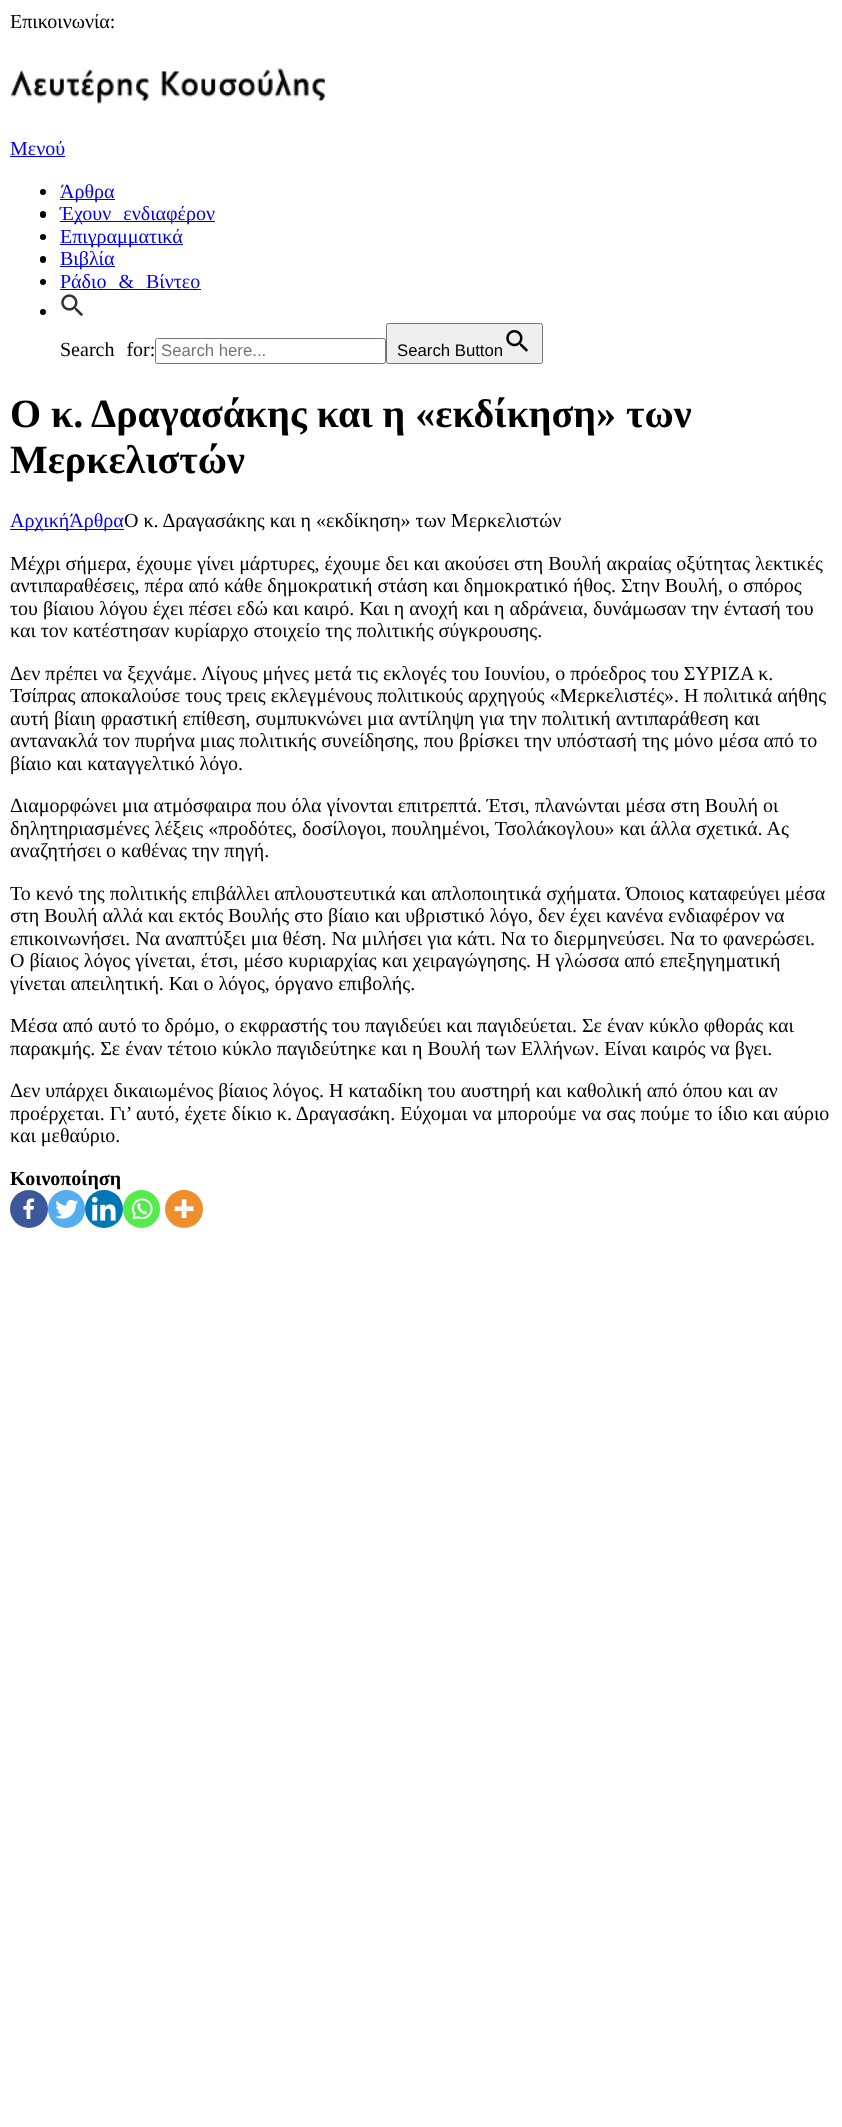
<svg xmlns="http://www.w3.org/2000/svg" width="842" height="2127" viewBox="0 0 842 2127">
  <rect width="100%" height="100%" fill="#fff"/>
  <image x="11" y="68" width="314" height="36" href="img/1.png"/>
  <path d="M10 156h55v1H10z" fill="#00e"/>
  <circle cx="43" cy="192" r="3" fill="#000"/>
  <path d="M60 199h55v1H60z" fill="#00e"/>
  <rect x="40" y="211" width="6" height="7" rx="3" fill="#000"/>
  <path d="M60 221h155v1H60z" fill="#00e"/>
  <circle cx="43" cy="237" r="3" fill="#000"/>
  <path d="M60 244h123v1H60z" fill="#00e"/>
  <rect x="40" y="256" width="6" height="7" rx="3" fill="#000"/>
  <path d="M60 266h55v1H60z" fill="#00e"/>
  <circle cx="43" cy="282" r="3" fill="#000"/>
  <path d="M60 289h141v1H60z" fill="#00e"/>
  <circle cx="43" cy="312" r="3" fill="#000"/>
  <image x="61" y="294" width="22" height="23" href="img/2.png"/>
  <rect x="155.5" y="338.5" width="230" height="25" rx="2" fill="none" stroke="#767676"/>
  <rect x="386.5" y="323.5" width="156" height="40" rx="2" fill="#efefef" stroke="#767676"/>
  <image x="506" y="330" width="22" height="22" href="img/3.png"/>
  <path d="M10 529h114v1H10z" fill="#00e"/>
  <circle cx="29" cy="1209" r="19" fill="#3c589a"/>
  <image x="23" y="1198" width="12" height="21" href="img/4.png"/>
  <rect x="48" y="1190" width="37" height="38" rx="18.5" fill="#55acee"/>
  <image x="55" y="1199" width="24" height="20" href="img/5.png"/>
  <circle cx="104" cy="1209" r="19" fill="#0077b5"/>
  <image x="91" y="1196" width="25" height="25" href="img/6.png"/>
  <rect x="123" y="1190" width="37" height="38" rx="18.5" fill="#55eb4c"/>
  <image x="131" y="1198" width="22" height="22" href="img/7.png"/>
  <circle cx="184" cy="1209" r="19" fill="#ee8e2d"/>
  <image x="174" y="1199" width="20" height="20" href="img/8.png"/>
  <text x="10" y="28" font-family="Liberation Serif" font-size="20" fill="#000">Επικοινωνία:</text>
  <g font-family="Liberation Serif" font-size="20" fill="#00e">
    <text x="10" y="155">Μενού</text>
    <text x="60" y="198">Άρθρα</text>
    <text x="60" y="220" word-spacing="7">Έχουν ενδιαφέρον</text>
    <text x="60" y="243">Επιγραμματικά</text>
    <text x="60" y="265">Βιβλία</text>
    <text x="60" y="288" word-spacing="7">Ράδιο &amp; Βίντεο</text>
  </g>
  <text x="60" y="356" word-spacing="7" font-family="Liberation Serif" font-size="20" fill="#000">Search for:</text>
  <text x="161" y="356" font-family="Liberation Sans" font-size="16.75" fill="#757575">Search here...</text>
  <text x="397" y="356" font-family="Liberation Sans" font-size="16.75" fill="#000">Search Button</text>
  <g font-family="Liberation Serif" font-size="40" font-weight="bold" fill="#000">
    <text x="10" y="427">Ο κ. Δραγασάκης και η «εκδίκηση» των</text>
    <text x="10" y="473">Μερκελιστών</text>
  </g>
  <text x="10" y="527" font-family="Liberation Serif" font-size="20" fill="#00e">ΑρχικήΆρθρα</text>
  <g font-family="Liberation Serif" font-size="20" fill="#000">
    <text x="124" y="527">Ο κ. Δραγασάκης και η «εκδίκηση» των Μερκελιστών</text>
    <text x="10" y="570">Μέχρι σήμερα, έχουμε γίνει μάρτυρες, έχουμε δει και ακούσει στη Βουλή ακραίας οξύτητας λεκτικές</text>
    <text x="10" y="592">αντιπαραθέσεις, πέρα από κάθε δημοκρατική στάση και δημοκρατικό ήθος. Στην Βουλή, ο σπόρος</text>
    <text x="10" y="615">του βίαιου λόγου έχει πέσει εδώ και καιρό. Και η ανοχή και η αδράνεια, δυνάμωσαν την έντασή του</text>
    <text x="10" y="637">και τον κατέστησαν κυρίαρχο στοιχείο της πολιτικής σύγκρουσης.</text>
    <text x="10" y="680">Δεν πρέπει να ξεχνάμε. Λίγους μήνες μετά τις εκλογές του Ιουνίου, ο πρόεδρος του ΣΥΡΙΖΑ κ.</text>
    <text x="10" y="702">Τσίπρας αποκαλούσε τους τρεις εκλεγμένους πολιτικούς αρχηγούς «Μερκελιστές». Η πολιτικά αήθης</text>
    <text x="10" y="725">αυτή βίαιη φραστική επίθεση, συμπυκνώνει μια αντίληψη για την πολιτική αντιπαράθεση και</text>
    <text x="10" y="747">αντανακλά τον πυρήνα μιας πολιτικής συνείδησης, που βρίσκει την υπόστασή της μόνο μέσα από το</text>
    <text x="10" y="770">βίαιο και καταγγελτικό λόγο.</text>
    <text x="10" y="812">Διαμορφώνει μια ατμόσφαιρα που όλα γίνονται επιτρεπτά. Έτσι, πλανώνται μέσα στη Βουλή οι</text>
    <text x="10" y="835">δηλητηριασμένες λέξεις «προδότες, δοσίλογοι, πουλημένοι, Τσολάκογλου» και άλλα σχετικά. Ας</text>
    <text x="10" y="857">αναζητήσει ο καθένας την πηγή.</text>
    <text x="10" y="900">Το κενό της πολιτικής επιβάλλει απλουστευτικά και απλοποιητικά σχήματα. Όποιος καταφεύγει μέσα</text>
    <text x="10" y="922">στη Βουλή αλλά και εκτός Βουλής στο βίαιο και υβριστικό λόγο, δεν έχει κανένα ενδιαφέρον να</text>
    <text x="10" y="945">επικοινωνήσει. Να αναπτύξει μια θέση. Να μιλήσει για κάτι. Να το διερμηνεύσει. Να το φανερώσει.</text>
    <text x="10" y="967">Ο βίαιος λόγος γίνεται, έτσι, μέσο κυριαρχίας και χειραγώγησης. Η γλώσσα από επεξηγηματική</text>
    <text x="10" y="990">γίνεται απειλητική. Και ο λόγος, όργανο επιβολής.</text>
    <text x="10" y="1032">Μέσα από αυτό το δρόμο, ο εκφραστής του παγιδεύει και παγιδεύεται. Σε έναν κύκλο φθοράς και</text>
    <text x="10" y="1055">παρακμής. Σε έναν τέτοιο κύκλο παγιδεύτηκε και η Βουλή των Ελλήνων. Είναι καιρός να βγει.</text>
    <text x="10" y="1097">Δεν υπάρχει δικαιωμένος βίαιος λόγος. Η καταδίκη του αυστηρή και καθολική από όπου και αν</text>
    <text x="10" y="1120">προέρχεται. Γι’ αυτό, έχετε δίκιο κ. Δραγασάκη. Εύχομαι να μπορούμε να σας πούμε το ίδιο και αύριο</text>
    <text x="10" y="1142">και μεθαύριο.</text>
  </g>
  <text x="10" y="1185" font-family="Liberation Serif" font-size="20" font-weight="bold" fill="#000">Κοινοποίηση</text>
</svg>
